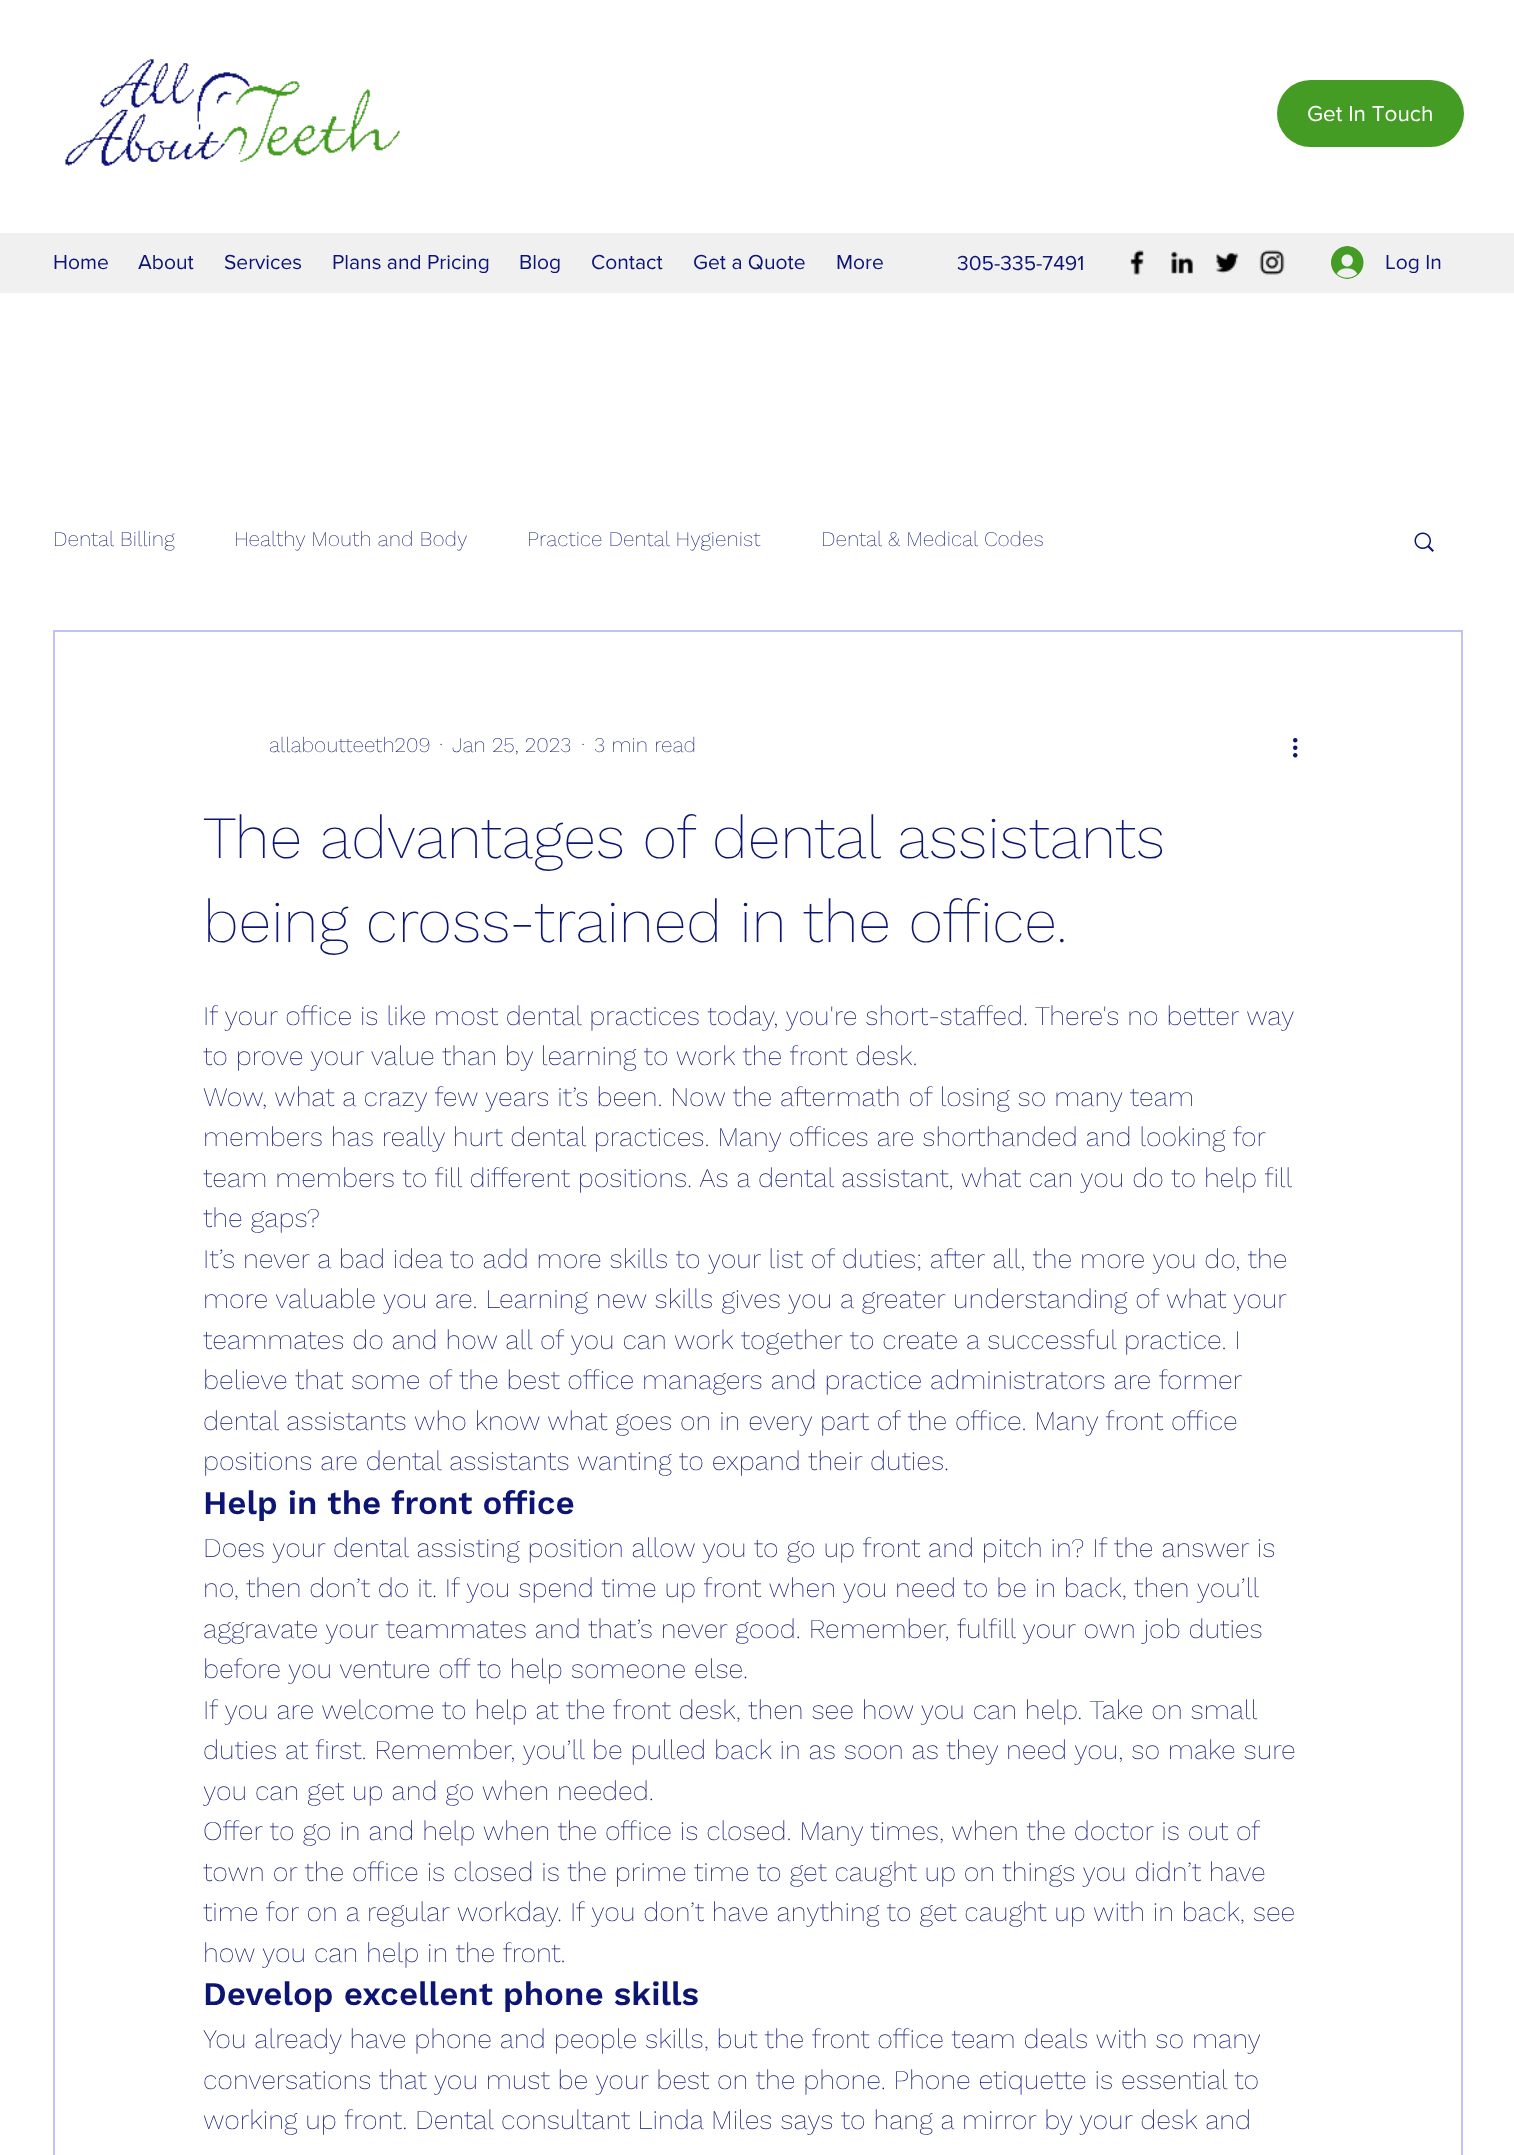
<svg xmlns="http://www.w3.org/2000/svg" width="1514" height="2155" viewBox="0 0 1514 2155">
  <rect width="100%" height="100%" fill="#fff"/>
  <image x="65" y="59" width="335" height="107" href="img/1.png"/>
  <rect x="1277" y="80" width="187" height="67" rx="33.5" fill="#449c24"/>
  <path d="M0 233h1514v60H0z" fill="#f0f0f0"/>
  <image x="1130" y="250" width="14" height="25" href="img/2.png"/>
  <image x="1171" y="251" width="23" height="23" href="img/3.png"/>
  <image x="1215" y="252" width="24" height="22" href="img/4.png"/>
  <image x="1259" y="250" width="26" height="25" href="img/5.png"/>
  <image x="1331" y="246" width="33" height="33" href="img/6.png"/>
  <image x="1414" y="532" width="20" height="20" href="img/7.png"/>
  <path d="M54 631h1408v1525H54z" fill="none" stroke="#bec2f8" stroke-width="2"/>
  <image x="1293" y="738" width="5" height="20" href="img/8.png"/>
  <text x="1307" y="121" font-family="'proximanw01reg'" font-size="22.5" fill="#fff">Get In Touch</text>
  <g font-family="'proximanw01reg'" font-size="21" fill="#0c1474">
    <text x="53" y="269">Home</text>
    <text x="138" y="269">About</text>
    <text x="224" y="269">Services</text>
    <text x="332" y="269">Plans and Pricing</text>
    <text x="519" y="269">Blog</text>
    <text x="591" y="269">Contact</text>
    <text x="693" y="269">Get a Quote</text>
    <text x="836" y="269">More</text>
    <text x="957" y="270">305-335-7491</text>
    <text x="1385" y="269">Log In</text>
  </g>
  <g font-family="Work Sans" font-size="21" font-weight="200" fill="#0c1474">
    <text x="53" y="546">Dental Billing</text>
    <text x="234" y="546">Healthy Mouth and Body</text>
    <text x="527" y="546">Practice Dental Hygienist</text>
    <text x="821" y="546">Dental &amp; Medical Codes</text>
    <text x="269" y="752">allaboutteeth209</text>
    <text x="439" y="752">·</text>
    <text x="452" y="752">Jan 25, 2023</text>
    <text x="581" y="752">·</text>
    <text x="594" y="752">3 min read</text>
  </g>
  <g font-family="Work Sans" font-size="60" font-weight="200" fill="#0c1474">
    <text x="203" y="858">The advantages of dental assistants</text>
    <text x="203" y="942">being cross-trained in the office.</text>
  </g>
  <g font-family="Work Sans" font-size="27" font-weight="200" fill="#0c1474">
    <text x="203" y="1025">If your office is like most dental practices today, you're short-staffed. There's no better way</text>
    <text x="203" y="1065">to prove your value than by learning to work the front desk.</text>
    <text x="203" y="1106">Wow, what a crazy few years it’s been. Now the aftermath of losing so many team</text>
    <text x="203" y="1146">members has really hurt dental practices. Many offices are shorthanded and looking for</text>
    <text x="203" y="1187">team members to fill different positions. As a dental assistant, what can you do to help fill</text>
    <text x="203" y="1227">the gaps?</text>
    <text x="203" y="1268">It’s never a bad idea to add more skills to your list of duties; after all, the more you do, the</text>
    <text x="203" y="1308">more valuable you are. Learning new skills gives you a greater understanding of what your</text>
    <text x="203" y="1349">teammates do and how all of you can work together to create a successful practice. I</text>
    <text x="203" y="1389">believe that some of the best office managers and practice administrators are former</text>
    <text x="203" y="1430">dental assistants who know what goes on in every part of the office. Many front office</text>
    <text x="203" y="1470">positions are dental assistants wanting to expand their duties.</text>
  </g>
  <text x="203" y="1514" font-family="Work Sans" font-size="33" font-weight="600" fill="#0c1474">Help in the front office</text>
  <g font-family="Work Sans" font-size="27" font-weight="200" fill="#0c1474">
    <text x="203" y="1557">Does your dental assisting position allow you to go up front and pitch in? If the answer is</text>
    <text x="203" y="1597">no, then don’t do it. If you spend time up front when you need to be in back, then you’ll</text>
    <text x="203" y="1638">aggravate your teammates and that’s never good. Remember, fulfill your own job duties</text>
    <text x="203" y="1678">before you venture off to help someone else.</text>
    <text x="203" y="1719">If you are welcome to help at the front desk, then see how you can help. Take on small</text>
    <text x="203" y="1759">duties at first. Remember, you’ll be pulled back in as soon as they need you, so make sure</text>
    <text x="203" y="1800">you can get up and go when needed.</text>
    <text x="203" y="1840">Offer to go in and help when the office is closed. Many times, when the doctor is out of</text>
    <text x="203" y="1881">town or the office is closed is the prime time to get caught up on things you didn’t have</text>
    <text x="203" y="1921">time for on a regular workday. If you don’t have anything to get caught up with in back, see</text>
    <text x="203" y="1962">how you can help in the front.</text>
  </g>
  <text x="203" y="2005" font-family="Work Sans" font-size="33" font-weight="600" fill="#0c1474">Develop excellent phone skills</text>
  <g font-family="Work Sans" font-size="27" font-weight="200" fill="#0c1474">
    <text x="203" y="2048">You already have phone and people skills, but the front office team deals with so many</text>
    <text x="203" y="2089">conversations that you must be your best on the phone. Phone etiquette is essential to</text>
    <text x="203" y="2129">working up front. Dental consultant Linda Miles says to hang a mirror by your desk and</text>
  </g>
</svg>
